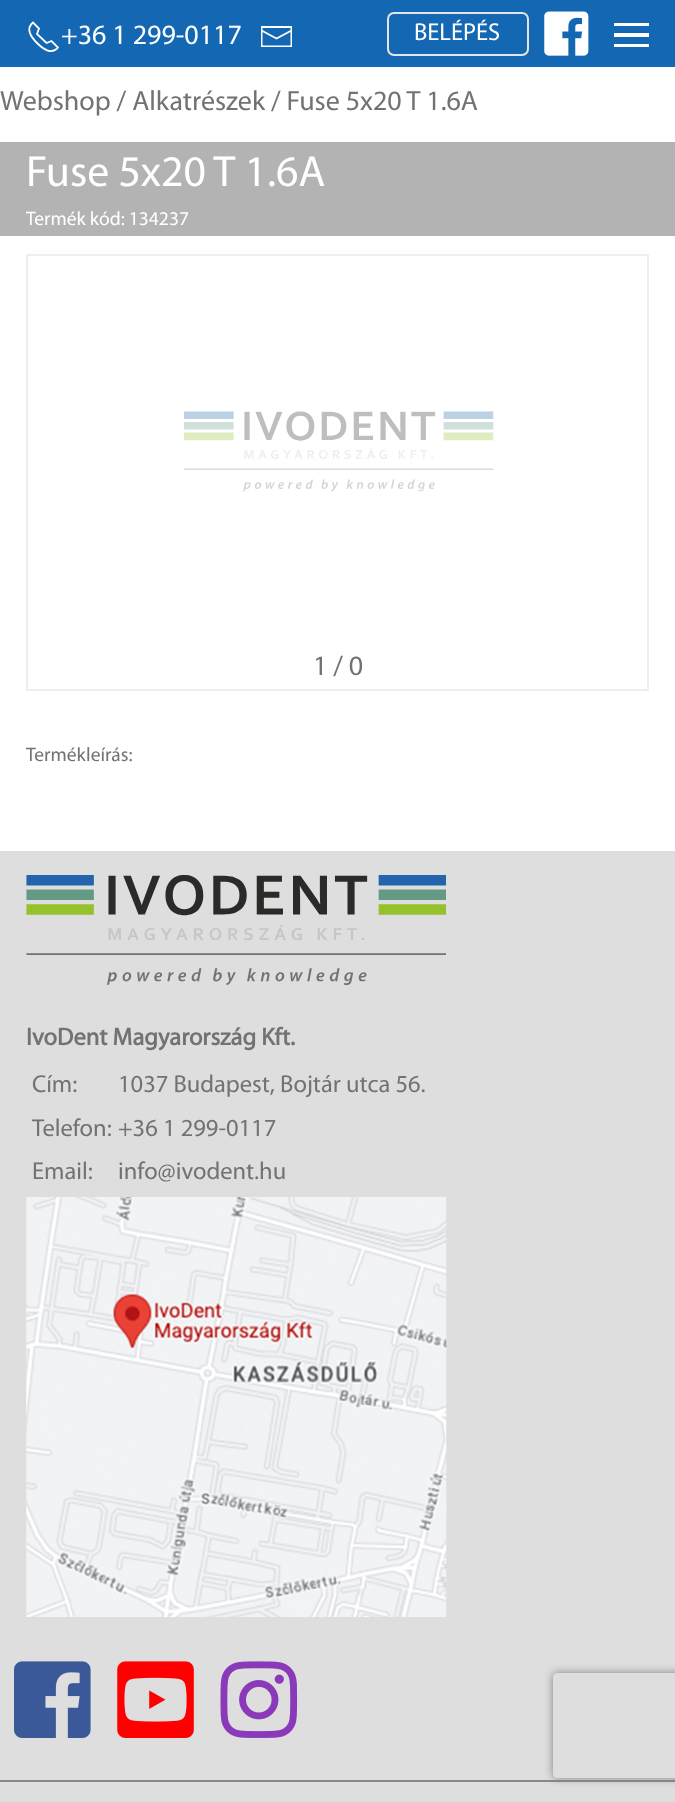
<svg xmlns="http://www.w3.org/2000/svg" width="675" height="1802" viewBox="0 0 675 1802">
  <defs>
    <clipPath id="clip1"><path d="M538 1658H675V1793H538ZM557 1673H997C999 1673 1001 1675 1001 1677V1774C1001 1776 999 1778 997 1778H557C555 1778 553 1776 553 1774V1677C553 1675 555 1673 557 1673Z" clip-rule="evenodd"/></clipPath>
  </defs>
  <rect width="100%" height="100%" fill="#fff"/>
  <path d="M0 0h675v67H0z" fill="#1468b3"/>
  <path d="M37 43C42.5 48.5 51.5 55.5 58 47.5L51.5 41L46.5 43L37 34L39 28.5L33 22.5C25 29 31.5 37.5 37 43" fill="none" stroke="#fff" stroke-width="1.8"/>
  <path d="M261.5 30.5L276.5 38.5L291.5 30.5" fill="none" stroke="#fff" stroke-width="1.8"/>
  <path d="M261 26V47H292V26ZM290.5 45.5H262.5V28H290.5Z" fill="#fff"/>
  <rect x="388" y="13" width="140" height="42" rx="6" fill="none" stroke="#e5e5e5" stroke-width="2"/>
  <image x="544" y="11" width="45" height="45" href="img/1.png"/>
  <path d="M614 23h35v3H614z" fill="#fff"/>
  <path d="M614 33h35v4H614z" fill="#fff"/>
  <path d="M614 44h35v3H614z" fill="#fff"/>
  <path d="M0 142h675v94H0z" fill="#b3b3b3"/>
  <path d="M27 255h621v435H27z" fill="none" stroke="#eee" stroke-width="2"/>
  <image x="184" y="411" width="310" height="81" href="img/2.png"/>
  <path d="M0 851h675v951H0z" fill="#dfdede"/>
  <image x="26" y="875" width="420" height="110" href="img/3.png"/>
  <image x="26" y="1197" width="421" height="420" href="img/4.png"/>
  <image x="14" y="1661" width="77" height="77" href="img/5.png"/>
  <image x="117" y="1661" width="77" height="77" href="img/6.png"/>
  <image x="220" y="1661" width="78" height="77" href="img/7.png"/>
  <path d="M0 1780h675v2H0z" fill="#888"/>
  <g clip-path="url(#clip1)">
    <rect x="553" y="1673" width="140" height="105" rx="4" fill="#808080" filter="blur(4.5px)"/>
  </g>
  <text x="61" y="44" font-family="Myriad" font-size="28" fill="#fff">+36 1 299-0117</text>
  <text x="414" y="40" font-family="Myriad" font-size="24.5" fill="#fff">BELÉPÉS</text>
  <text x="0" y="110" font-family="Myriad" font-size="28" fill="#727271">Webshop / Alkatrészek / Fuse 5x20 T 1.6A</text>
  <text x="26" y="186" font-family="Myriad" font-size="43.75" fill="#fff">Fuse 5x20 T 1.6A</text>
  <text x="26" y="225" font-family="Myriad" font-size="19.5" fill="#fff">Termék kód: 134237</text>
  <text x="313" y="675" font-family="Myriad" font-size="28" fill="#727271">1 / 0</text>
  <text x="26" y="761" font-family="Myriad" font-size="19.5" fill="#727271">Termékleírás:</text>
  <text x="26" y="1045" font-family="Myriad" font-size="24.5" font-weight="bold" fill="#727271">IvoDent Magyarország Kft.</text>
  <g font-family="Myriad" font-size="24.5" fill="#727271">
    <text x="32" y="1092">Cím:</text>
    <text x="118" y="1092">1037 Budapest, Bojtár utca 56.</text>
    <text x="32" y="1136">Telefon:</text>
    <text x="118" y="1136">+36 1 299-0117</text>
    <text x="32" y="1179">Email:</text>
    <text x="118" y="1179">info@ivodent.hu</text>
  </g>
</svg>
